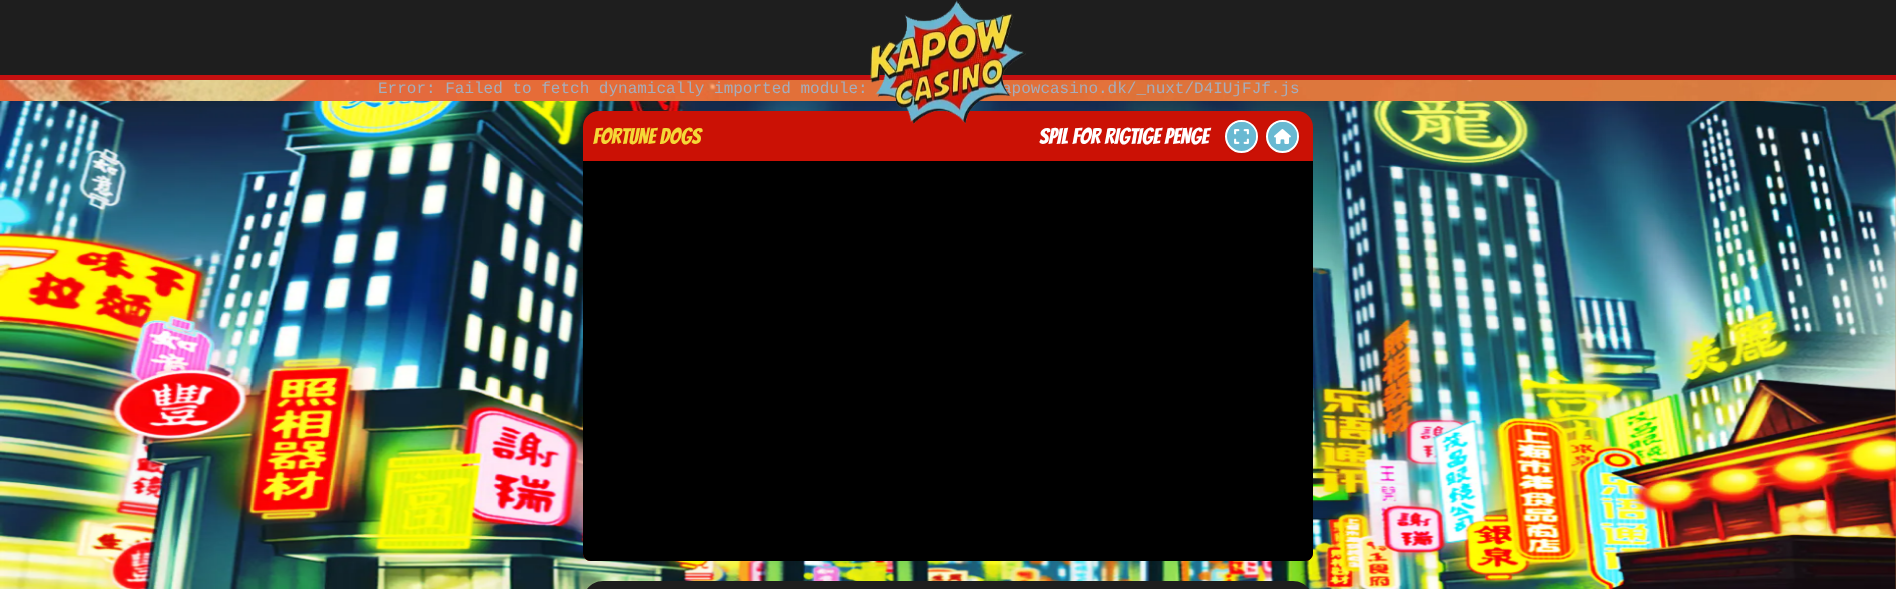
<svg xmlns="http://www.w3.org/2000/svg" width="1896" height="589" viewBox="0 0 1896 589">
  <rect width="100%" height="100%" fill="#fff"/>
  <image x="1895" y="588" width="1" height="1" href="img/6.png"/>
  <image x="0" y="80" width="1896" height="509" href="img/1.png"/>
  <path d="M0 0h1896v75H0z" fill="#1e1e1e"/>
  <path d="M0 75h1896v5H0z" fill="#c51010"/>
  <image x="0" y="101" width="1896" height="488" href="img/3.png"/>
  <path d="M599 111H1297C1306 111 1313 118 1313 127V553C1313 557.5 1309.5 561 1305 561H591C586.5 561 583 557.5 583 553V127C583 118 590 111 599 111Z" fill="#cb1105"/>
  <rect x="1225" y="121" width="33" height="33" rx="16.5" fill="#0000000d" filter="blur(1px)"/>
  <circle cx="1241.5" cy="136.5" r="15.5" fill="#69b9d2" stroke="#fff" stroke-width="2"/>
  <circle cx="1242" cy="136" r="14" fill="#69b9d2"/>
  <image x="1234" y="129" width="15" height="15" href="img/4.png"/>
  <rect x="1266" y="121" width="33" height="33" rx="16.5" fill="#0000000d" filter="blur(1px)"/>
  <circle cx="1282.5" cy="136.5" r="15.5" fill="#69b9d2" stroke="#fff" stroke-width="2"/>
  <circle cx="1283" cy="136" r="14" fill="#69b9d2"/>
  <image x="1274" y="129" width="17" height="15" href="img/5.png"/>
  <path d="M583 161H1313V553C1313 557.5 1309.5 561 1305 561H591C586.5 561 583 557.5 583 553Z" fill="#000"/>
  <path d="M603 581H1293C1304 581 1313 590 1313 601V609H583V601C583 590 592 581 603 581Z" fill="#1e1e1e"/>
  <g font-family="Liberation Mono" font-size="16" fill="#a6adbb">
    <text x="378" y="93">Error: Failed to fetch dynamically imported module:</text>
    <text x="1002" y="93">apowcasino.dk/_nuxt/D4IUjFJf.js</text>
  </g>
  <image x="870" y="0" width="156" height="124" href="img/2.png"/>
  <text x="593" y="144" font-family="Bangers" font-size="22" fill="#f5d737">FORTUNE DOGS</text>
  <text x="1039" y="144" font-family="Bangers" font-size="22" fill="#fff">SPIL FOR RIGTIGE PENGE</text>
</svg>
